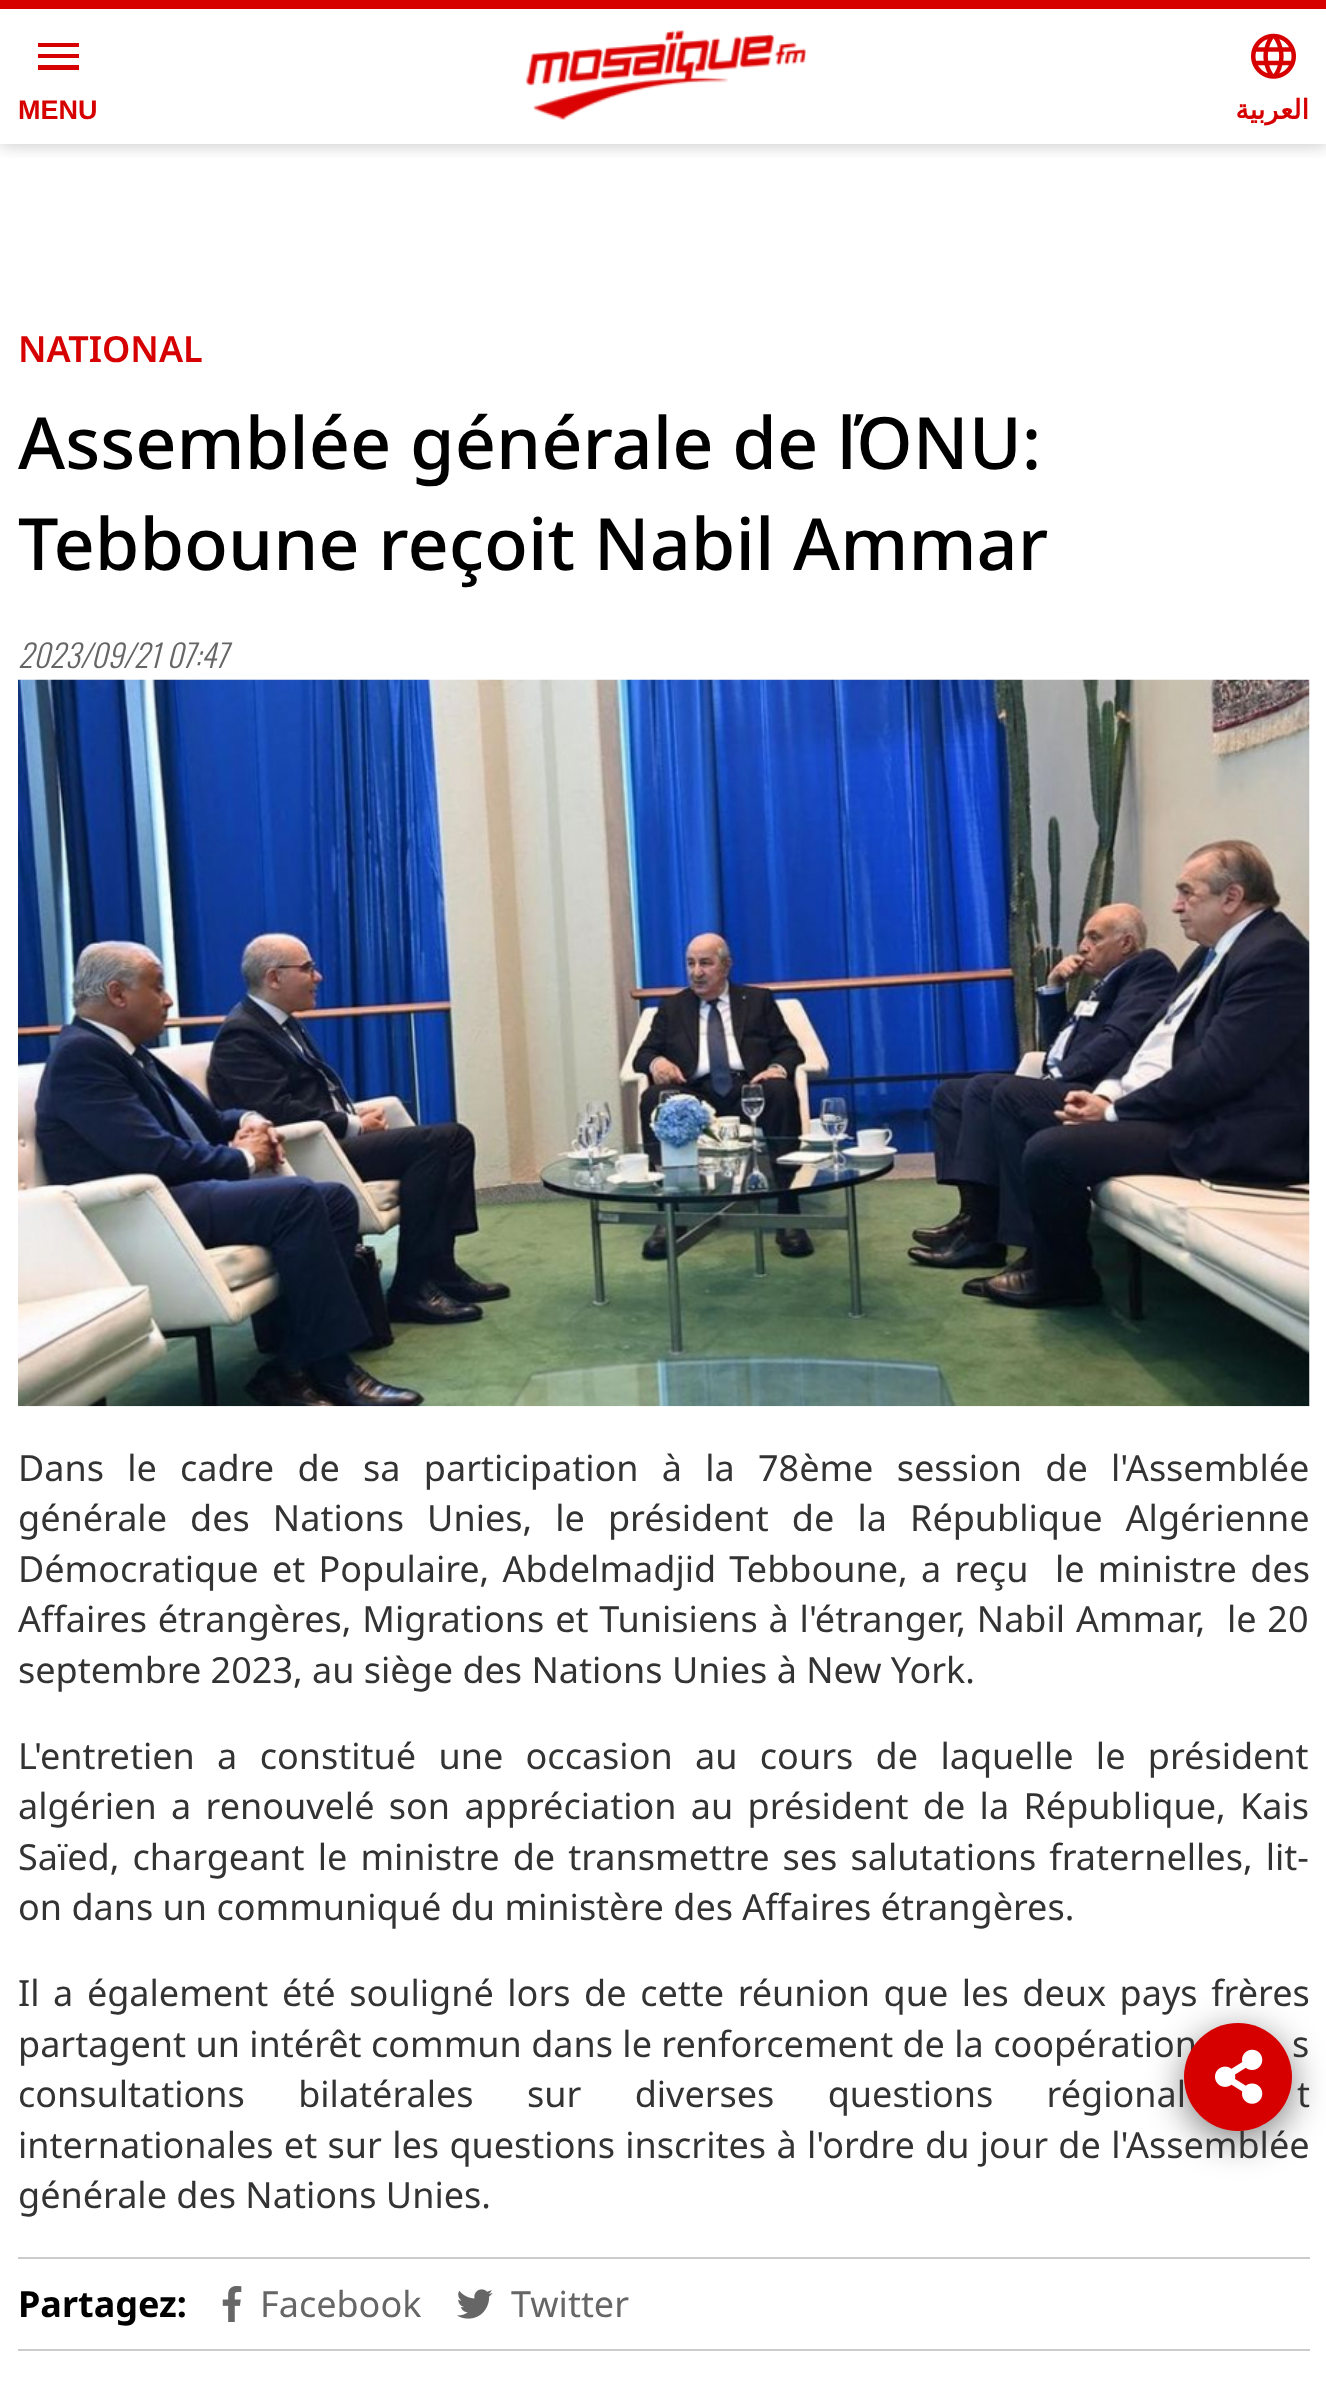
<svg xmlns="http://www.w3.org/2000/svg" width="1326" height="2399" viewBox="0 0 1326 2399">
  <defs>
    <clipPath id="clip1"><path d="M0 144h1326v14H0z"/></clipPath>
  </defs>
  <rect width="100%" height="100%" fill="#fff"/>
  <g clip-path="url(#clip1)">
    <path d="M0 0h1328v144H0z" fill="#3333334d" filter="blur(9px)"/>
  </g>
  <path d="M0 0h1326v9H0z" fill="#d60000"/>
  <path d="M38 70V65H79V70ZM38 58V54H79V58ZM38 47V43H79V47Z" fill="#d60000"/>
  <image x="526" y="30" width="280" height="90" href="img/1.png"/>
  <image x="1251" y="33" width="45" height="46" href="img/2.png"/>
  <image x="18" y="679" width="1292" height="728" href="img/3.png"/>
  <path d="M18 2257h1292v2H18z" fill="#ccc"/>
  <path d="M18 2349h1292v2H18z" fill="#ccc"/>
  <image x="222" y="2286" width="20" height="36" href="img/4.png"/>
  <image x="457" y="2289" width="36" height="30" href="img/5.png"/>
  <rect x="1184" y="2032" width="108" height="108" rx="54" fill="#00000080" filter="blur(18px)"/>
  <text x="18" y="119" font-family="Liberation Sans" font-size="27" font-weight="bold" fill="#d60000">MENU</text>
  <text x="1309" y="119" font-family="DejaVu Sans" font-size="27" font-weight="bold" direction="rtl" fill="#d60000">العربية</text>
  <text x="18" y="362" font-family="Noto Sans" font-size="36" font-weight="600" fill="#d60000">NATIONAL</text>
  <g font-family="Noto Sans" font-size="72" font-weight="500" fill="#000">
    <text x="18" y="469">Assemblée générale de ľONU:</text>
    <text x="18" y="570">Tebboune reçoit Nabil Ammar</text>
  </g>
  <text x="18" y="668" font-family="Oswald" font-size="31.5" font-weight="300" font-style="italic" fill="#666">2023/09/21 07:47</text>
  <g font-family="Noto Sans" font-size="36" fill="#333">
    <text x="18" y="1481" word-spacing="13.9">Dans le cadre de sa participation à la 78ème session de l'Assemblée</text>
    <text x="18" y="1531" word-spacing="13.75">générale des Nations Unies, le président de la République Algérienne</text>
    <text x="18" y="1582" word-spacing="3.9" xml:space="preserve">Démocratique et Populaire, Abdelmadjid Tebboune, a reçu  le ministre des</text>
    <text x="18" y="1632" word-spacing="1.5" xml:space="preserve">Affaires étrangères, Migrations et Tunisiens à l'étranger, Nabil Ammar,  le 20</text>
    <text x="18" y="1683">septembre 2023, au siège des Nations Unies à New York.</text>
    <text x="18" y="1769" word-spacing="13">L'entretien a constitué une occasion au cours de laquelle le président</text>
    <text x="18" y="1819" word-spacing="5">algérien a renouvelé son appréciation au président de la République, Kais</text>
    <text x="18" y="1870" word-spacing="3.75">Saïed, chargeant le ministre de transmettre ses salutations fraternelles, lit-</text>
    <text x="18" y="1920">on dans un communiqué du ministère des Affaires étrangères.</text>
    <text x="18" y="2006" word-spacing="4.25">Il a également été souligné lors de cette réunion que les deux pays frères</text>
    <text x="18" y="2057">partagent un intérêt commun dans le renforcement de la coopération</text>
    <text x="1292" y="2057">s</text>
    <text x="18" y="2107" word-spacing="44">consultations bilatérales sur diverses questions régional</text>
    <text x="1297" y="2107" word-spacing="44">t</text>
    <text x="18" y="2158" word-spacing="1">internationales et sur les questions inscrites à l'ordre du jour de l'Assemblée</text>
    <text x="18" y="2208">générale des Nations Unies.</text>
  </g>
  <text x="18" y="2317" font-family="Noto Sans" font-size="36" font-weight="bold" fill="#000">Partagez:</text>
  <g font-family="Noto Sans" font-size="36" fill="#666">
    <text x="260" y="2317">Facebook</text>
    <text x="511" y="2317">Twitter</text>
  </g>
  <circle cx="1238" cy="2077" r="54" fill="#d60000"/>
  <image x="1215" y="2049" width="48" height="55" href="img/6.png"/>
</svg>
